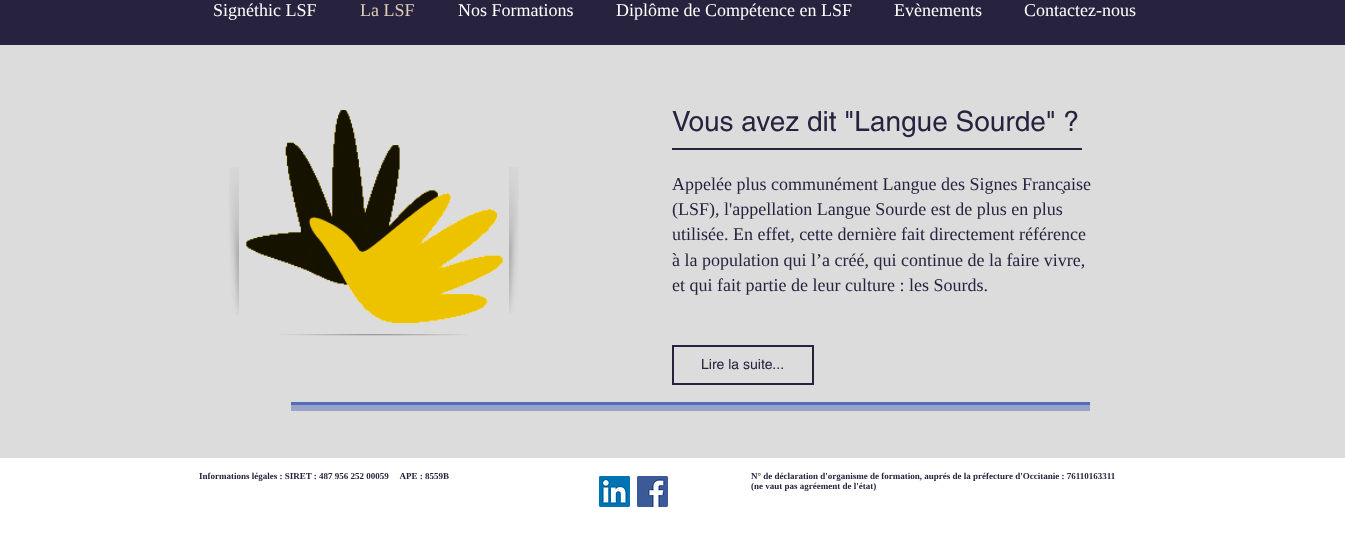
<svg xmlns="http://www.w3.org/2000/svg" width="1345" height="536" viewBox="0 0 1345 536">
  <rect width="100%" height="100%" fill="#dcdcdc"/>
  <path d="M0 0h1345v45H0z" fill="#27223e"/>
  <image x="229" y="167" width="10" height="148" href="img/1.png"/>
  <image x="246" y="110" width="257" height="214" href="img/2.png"/>
  <image x="280" y="334" width="188" height="2" href="img/3.png"/>
  <image x="509" y="167" width="10" height="148" href="img/4.png"/>
  <path d="M672 148h410v2H672z" fill="#27223e"/>
  <path d="M673 346h140v38H673z" fill="none" stroke="#27223e" stroke-width="2"/>
  <path d="M291 402h799v3H291z" fill="#536eb7"/>
  <path d="M291 405h799v6H291z" fill="#98a5c9"/>
  <path d="M0 458h1345v78H0z" fill="#fff"/>
  <image x="599" y="476" width="31" height="31" href="img/5.png"/>
  <image x="637" y="476" width="31" height="31" href="img/6.png"/>
  <text x="213" y="16" font-family="Liberation Serif" font-size="18" fill="#fff">Signéthic LSF</text>
  <text x="360" y="16" font-family="Liberation Serif" font-size="18" fill="#dfcfba">La LSF</text>
  <g font-family="Liberation Serif" font-size="18" fill="#fff">
    <text x="458" y="16">Nos Formations</text>
    <text x="616" y="16">Diplôme de Compétence en LSF</text>
    <text x="894" y="16">Evènements</text>
    <text x="1024" y="16">Contactez-nous</text>
  </g>
  <text x="672" y="131" font-family="helvetica" font-size="28" fill="#27223e">Vous avez dit "Langue Sourde" ?</text>
  <g font-family="Liberation Serif" font-size="18" fill="#27223e">
    <text x="672" y="190">Appelée plus communément Langue des Signes Française</text>
    <text x="672" y="215">(LSF), l'appellation Langue Sourde est de plus en plus</text>
    <text x="672" y="240">utilisée. En effet, cette dernière fait directement référence</text>
    <text x="672" y="266">à la population qui l’a créé, qui continue de la faire vivre,</text>
    <text x="672" y="291">et qui fait partie de leur culture : les Sourds.</text>
  </g>
  <text x="701" y="369" font-family="helvetica" font-size="14" fill="#27223e">Lire la suite...</text>
  <g font-family="Liberation Serif" font-size="9" font-weight="bold" fill="#27223e">
    <text x="199" y="479" xml:space="preserve">Informations légales : SIRET : 487 956 252 00059     APE : 8559B</text>
    <text x="751" y="479">N° de déclaration d'organisme de formation, auprés de la préfecture d'Occitanie : 76110163311</text>
    <text x="751" y="489">(ne vaut pas agréement de l'état)</text>
  </g>
</svg>
